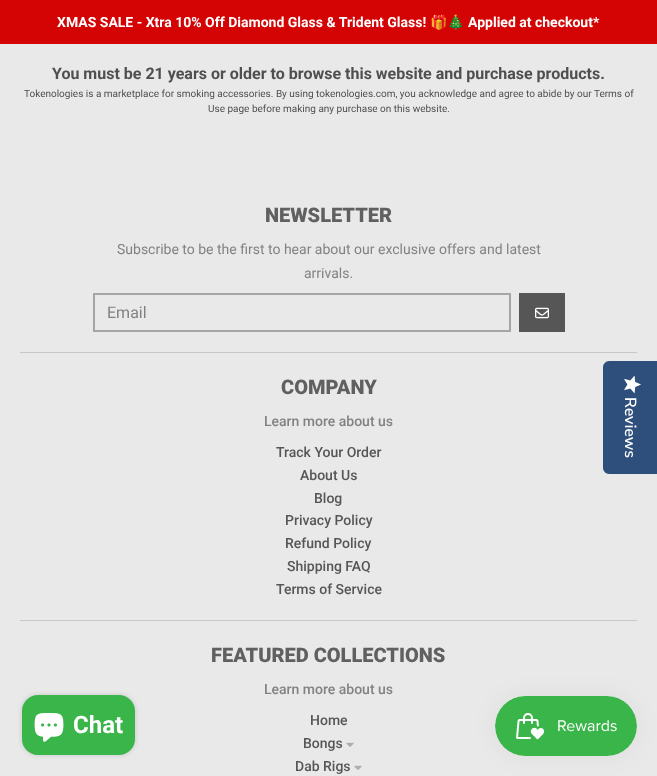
<svg xmlns="http://www.w3.org/2000/svg" width="657" height="776" viewBox="0 0 657 776">
  <rect width="100%" height="100%" fill="#e9e9e9"/>
  <path d="M0 0h657v44H0z" fill="#d40404"/>
  <path d="M94 294h416v37H94z" fill="none" stroke="#a5a5a5" stroke-width="2"/>
  <path d="M519 293h46v39H519z" fill="#565656"/>
  <image x="535" y="307" width="14" height="12" href="img/1.png"/>
  <path d="M20 352h617v1H20z" fill="#c7c7c7"/>
  <path d="M20 620h617v1H20z" fill="#c7c7c7"/>
  <image x="346" y="742" width="8" height="5" href="img/2.png"/>
  <image x="354" y="765" width="8" height="5" href="img/2.png"/>
  <path d="M657 361V474H609C606 474 603 471 603 468V367C603 364 606 361 609 361Z" fill="#2e4f7c"/>
  <image x="624" y="375" width="17" height="19" href="img/3.png"/>
  <rect x="22" y="695" width="113" height="60" rx="16" fill="#00000026" filter="blur(2.5px)"/>
  <rect x="22" y="695" width="113" height="60" rx="16" fill="#3ab549"/>
  <image x="34" y="713" width="30" height="29" href="img/4.png"/>
  <rect x="495" y="696" width="142" height="60" rx="30" fill="#0000000d" filter="blur(12.5px)"/>
  <image x="495" y="696" width="142" height="60" href="img/5.png"/>
  <text x="57" y="27" font-family="Roboto" font-size="14" font-weight="bold" fill="#fff">XMAS SALE - Xtra 10% Off Diamond Glass &amp; Trident Glass!</text>
  <text x="430" y="27" font-family="Noto Color Emoji" font-size="14" font-weight="bold" fill="#fff">🎁🎄</text>
  <text x="468" y="27" font-family="Roboto" font-size="14" font-weight="bold" fill="#fff">Applied at checkout*</text>
  <text x="52" y="79" font-family="Roboto" font-size="16" font-weight="bold" fill="#4f4f4f">You must be 21 years or older to browse this website and purchase products.</text>
  <g font-family="Roboto" font-size="10" fill="#4f4f4f">
    <text x="24" y="97">Tokenologies is a marketplace for smoking accessories. By using tokenologies.com, you acknowledge and agree to abide by our Terms of</text>
    <text x="208" y="112">Use page before making any purchase on this website.</text>
  </g>
  <text x="265" y="222" font-family="Roboto" font-size="20" font-weight="900" fill="#606060">NEWSLETTER</text>
  <g font-family="Roboto" font-size="14" fill="#828282">
    <text x="117" y="254">Subscribe to be the first to hear about our exclusive offers and latest</text>
    <text x="304" y="278">arrivals.</text>
  </g>
  <text x="107" y="318" font-family="Roboto" font-size="16" fill="#828282">Email</text>
  <text x="281" y="394" font-family="Roboto" font-size="20" font-weight="900" fill="#606060">COMPANY</text>
  <text x="264" y="426" font-family="Roboto" font-size="14" font-weight="500" fill="#828282">Learn more about us</text>
  <g font-family="Roboto" font-size="14" font-weight="500" fill="#565656">
    <text x="276" y="457">Track Your Order</text>
    <text x="300" y="480">About Us</text>
    <text x="314" y="503">Blog</text>
    <text x="285" y="525">Privacy Policy</text>
    <text x="285" y="548">Refund Policy</text>
    <text x="287" y="571">Shipping FAQ</text>
    <text x="276" y="594">Terms of Service</text>
  </g>
  <text x="211" y="662" font-family="Roboto" font-size="20" font-weight="900" fill="#606060">FEATURED COLLECTIONS</text>
  <text x="264" y="694" font-family="Roboto" font-size="14" font-weight="500" fill="#828282">Learn more about us</text>
  <g font-family="Roboto" font-size="14" font-weight="500" fill="#565656">
    <text x="310" y="725">Home</text>
    <text x="303" y="748">Bongs</text>
    <text x="295" y="771">Dab Rigs</text>
  </g>
  <text x="625" y="397" transform="rotate(90 625 397)" font-family="Nunito Sans" font-size="16" font-weight="200" fill="#fff">Reviews</text>
  <text x="73" y="733" font-family="Roboto" font-size="24" font-weight="bold" fill="#fff">Chat</text>
</svg>
